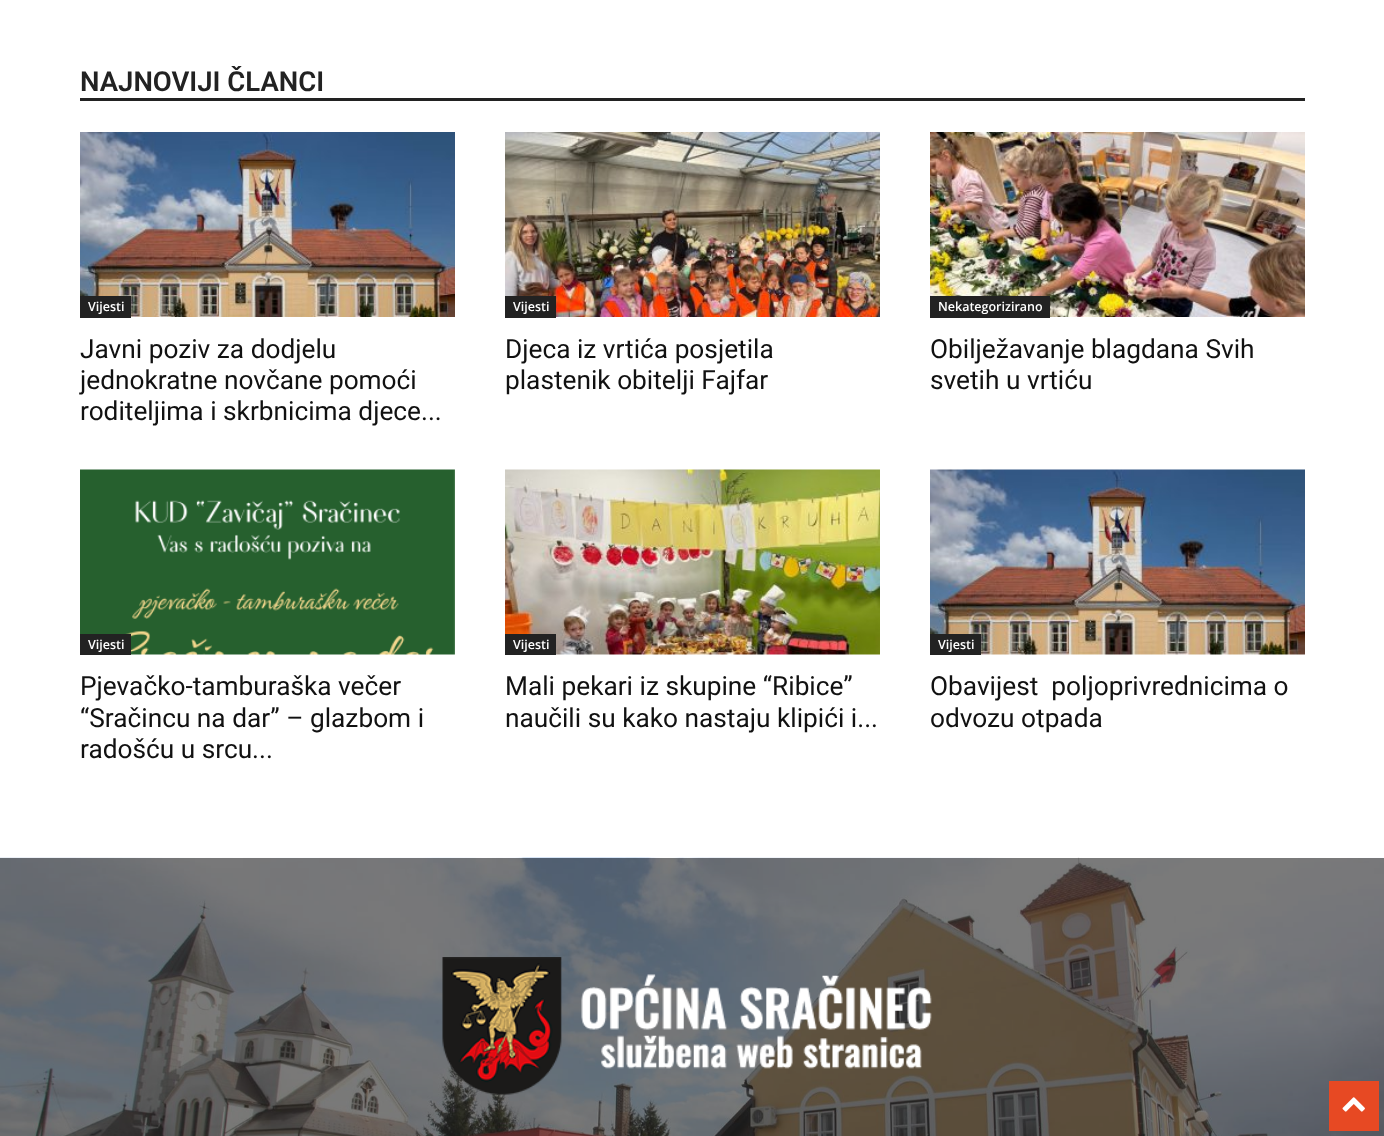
<svg xmlns="http://www.w3.org/2000/svg" width="1384" height="1136" viewBox="0 0 1384 1136">
  <rect width="100%" height="100%" fill="#fff"/>
  <path d="M80 98h1225v3H80z" fill="#222"/>
  <image x="80" y="132" width="375" height="185" href="img/1.png"/>
  <path d="M80 296h51v22H80z" fill="#222"/>
  <image x="505" y="132" width="375" height="185" href="img/2.png"/>
  <path d="M505 296h51v22H505z" fill="#222"/>
  <image x="930" y="132" width="375" height="185" href="img/3.png"/>
  <path d="M930 296h120v22H930z" fill="#222"/>
  <image x="80" y="469" width="375" height="186" href="img/4.png"/>
  <path d="M80 634h51v21H80z" fill="#222"/>
  <image x="505" y="469" width="375" height="186" href="img/5.png"/>
  <path d="M505 634h51v21H505z" fill="#222"/>
  <image x="930" y="469" width="375" height="186" href="img/6.png"/>
  <path d="M930 634h51v21H930z" fill="#222"/>
  <path d="M0 858h1384v278H0z" fill="#222"/>
  <image x="0" y="857" width="1384" height="279" href="img/7.png"/>
  <image x="442" y="957" width="490" height="138" href="img/8.png"/>
  <path d="M1329 1081h50v50H1329z" fill="#e74923"/>
  <image x="1342" y="1097" width="23" height="15" href="img/9.png"/>
  <text x="80" y="91" font-family="Roboto" font-size="27.5" font-weight="600" fill="#222">NAJNOVIJI ČLANCI</text>
  <text x="88" y="311" font-family="Open Sans" font-size="12.5" font-weight="600" fill="#fff">Vijesti</text>
  <g font-family="Roboto" font-size="26.25" fill="#111">
    <text x="80" y="358">Javni poziv za dodjelu</text>
    <text x="80" y="389">jednokratne novčane pomoći</text>
    <text x="80" y="420">roditeljima i skrbnicima djece...</text>
  </g>
  <text x="513" y="311" font-family="Open Sans" font-size="12.5" font-weight="600" fill="#fff">Vijesti</text>
  <g font-family="Roboto" font-size="26.25" fill="#111">
    <text x="505" y="358">Djeca iz vrtića posjetila</text>
    <text x="505" y="389">plastenik obitelji Fajfar</text>
  </g>
  <text x="938" y="311" font-family="Open Sans" font-size="12.5" font-weight="600" fill="#fff">Nekategorizirano</text>
  <g font-family="Roboto" font-size="26.25" fill="#111">
    <text x="930" y="358">Obilježavanje blagdana Svih</text>
    <text x="930" y="389">svetih u vrtiću</text>
  </g>
  <text x="88" y="649" font-family="Open Sans" font-size="12.5" font-weight="600" fill="#fff">Vijesti</text>
  <g font-family="Roboto" font-size="26.25" fill="#111">
    <text x="80" y="695">Pjevačko-tamburaška večer</text>
    <text x="80" y="727">“Sračincu na dar” – glazbom i</text>
    <text x="80" y="758">radošću u srcu...</text>
  </g>
  <text x="513" y="649" font-family="Open Sans" font-size="12.5" font-weight="600" fill="#fff">Vijesti</text>
  <g font-family="Roboto" font-size="26.25" fill="#111">
    <text x="505" y="695">Mali pekari iz skupine “Ribice”</text>
    <text x="505" y="727">naučili su kako nastaju klipići i...</text>
  </g>
  <text x="938" y="649" font-family="Open Sans" font-size="12.5" font-weight="600" fill="#fff">Vijesti</text>
  <g font-family="Roboto" font-size="26.25" fill="#111">
    <text x="930" y="695" xml:space="preserve">Obavijest  poljoprivrednicima o</text>
    <text x="930" y="727">odvozu otpada</text>
  </g>
</svg>
